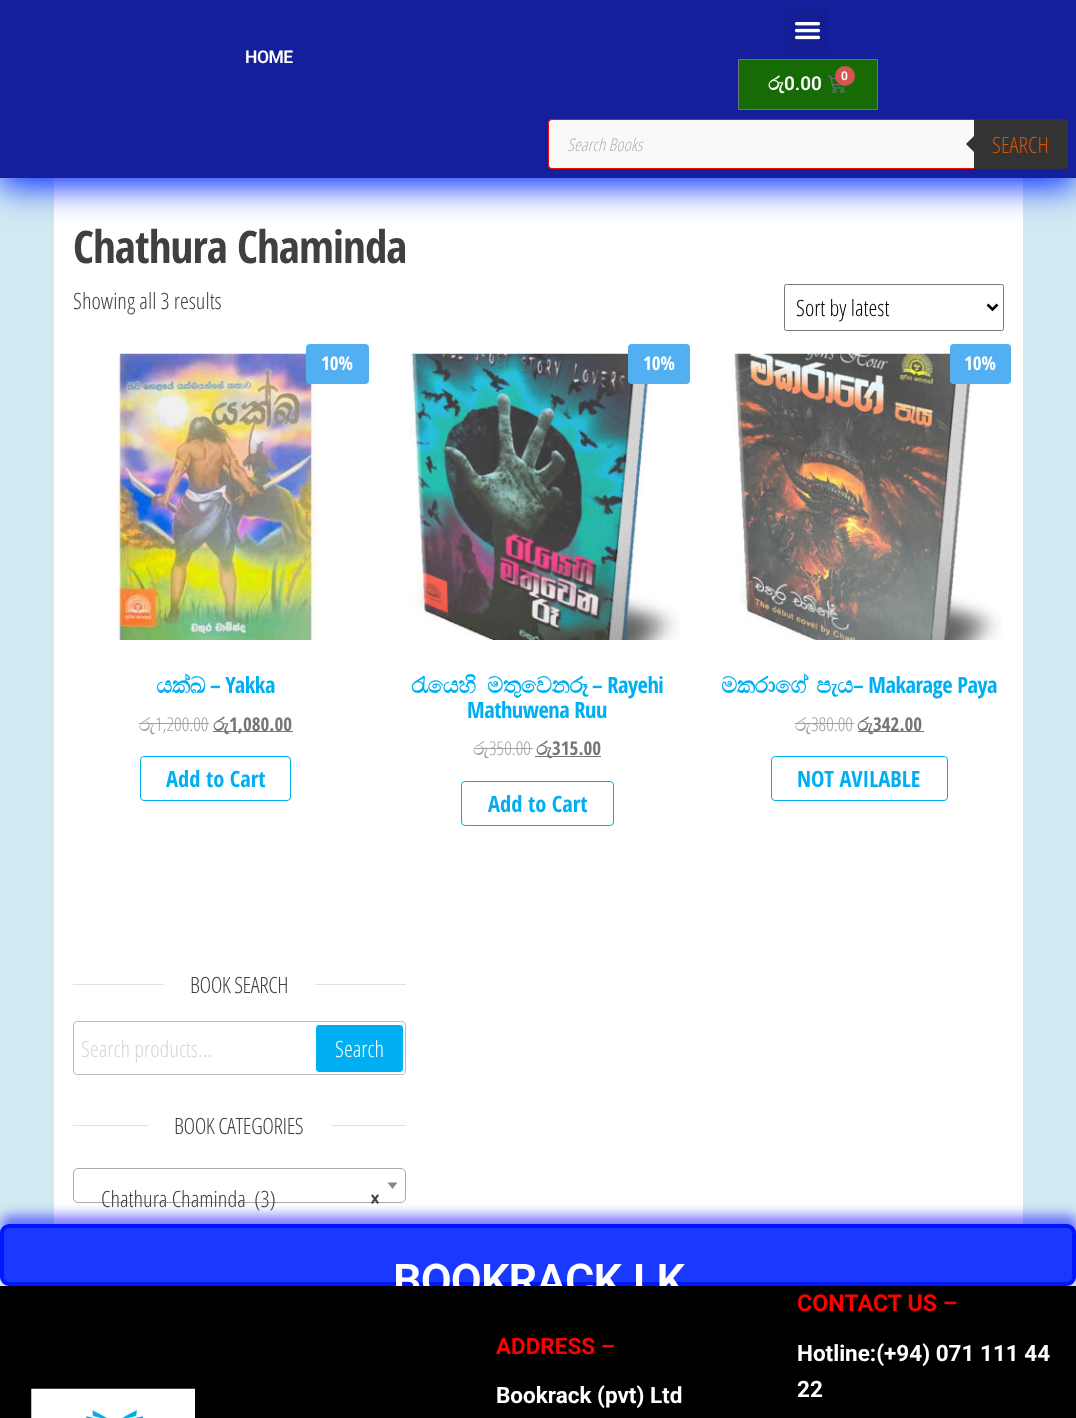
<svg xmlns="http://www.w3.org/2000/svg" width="1076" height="1418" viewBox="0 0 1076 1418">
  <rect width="100%" height="100%" fill="#d0eaf2"/>
  <path d="M54 178h969v1046H54z" fill="#fff"/>
  <path d="M0 9h1076v177H0z" fill="#0027ff" filter="blur(17px)"/>
  <path d="M0 0h1076v178H0z" fill="#151f9c"/>
  <rect x="786" y="9" width="42" height="41" rx="4" fill="#141d94"/>
  <image x="794" y="22" width="27" height="18" href="img/1.png"/>
  <path d="M738.5 59.5h139v50H738.5z" fill="#166b05" stroke="#69727d"/>
  <image x="828" y="75" width="17" height="19" href="img/2.png"/>
  <circle cx="845" cy="76" r="10" fill="#d9534f"/>
  <rect x="548.5" y="119.5" width="519" height="49" rx="3.5" fill="#f9f9f9" stroke="#ff0800"/>
  <path d="M974 119H1065.5C1067 119 1068 120 1068 121.5V166.5C1068 168 1067 169 1065.5 169H974Z" fill="#333"/>
  <path d="M976 134V154L966 144Z" fill="#333"/>
  <rect x="784.5" y="284.5" width="219" height="46" rx="2" fill="none" stroke="#767676"/>
  <path d="M987.5 304.5L992.5 309.5L997.5 304.5" fill="none" stroke="#000" stroke-width="2.5"/>
  <image x="117" y="353" width="203" height="287" href="img/3.png"/>
  <rect x="306" y="344" width="63" height="40" rx="4" fill="#52aff2"/>
  <path d="M139 723h16v1H139z" fill="#a0a0a0"/>
  <path d="M155 723h54v1H155z" fill="#a0a0a0"/>
  <path d="M213 731h80v1H213z" fill="#777"/>
  <rect x="140.5" y="756.5" width="150" height="44" rx="3.5" fill="none" stroke="#00aff2"/>
  <image x="409" y="353" width="271" height="287" href="img/4.png"/>
  <rect x="628" y="344" width="62" height="40" rx="4" fill="#52aff2"/>
  <path d="M474 748h16v1H474z" fill="#a0a0a0"/>
  <path d="M490 748h43v1H490z" fill="#a0a0a0"/>
  <path d="M535 756h16v1H535z" fill="#777"/>
  <path d="M551 756h50v1H551z" fill="#777"/>
  <rect x="461.5" y="781.5" width="152" height="44" rx="3.5" fill="none" stroke="#00aff2"/>
  <image x="732" y="353" width="270" height="287" href="img/5.png"/>
  <rect x="950" y="344" width="61" height="40" rx="4" fill="#52aff2"/>
  <path d="M795 723h16v1H795z" fill="#a0a0a0"/>
  <path d="M811 723h43v1H811z" fill="#a0a0a0"/>
  <path d="M858 731h66v1H858z" fill="#777"/>
  <rect x="771.5" y="756.5" width="176" height="44" rx="3.5" fill="none" stroke="#00aff2"/>
  <path d="M73 984h333v1H73z" fill="#e2e2e2"/>
  <path d="M164 984h151v1H164z" fill="#fff"/>
  <rect x="73.5" y="1021.5" width="332" height="53" rx="3.5" fill="none" stroke="#bbb"/>
  <rect x="315.5" y="1024.5" width="88" height="48" rx="3.5" fill="#00aff2" stroke="#fff"/>
  <path d="M73 1125h333v1H73z" fill="#e2e2e2"/>
  <path d="M149 1125h182v1H149z" fill="#fff"/>
  <rect x="73.5" y="1168.5" width="332" height="34" rx="4.5" fill="none" stroke="#aaa"/>
  <path d="M387.5 1182.5H397.5L392.5 1189Z" fill="#888"/>
  <rect x="1" y="1215" width="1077" height="63" rx="9" fill="#0700ff80" filter="blur(6px)"/>
  <rect x="2" y="1226" width="1072" height="58" rx="7" fill="#1939ff" stroke="#0016ff" stroke-width="4"/>
  <text x="245" y="63" font-family="Roboto" font-size="17.5" font-weight="600" letter-spacing="-0.5" fill="#fff">HOME</text>
  <text x="768" y="90" font-family="FreeSerif" font-size="19" font-weight="bold" fill="#fff">රු</text>
  <text x="784" y="90" font-family="Roboto" font-size="19" font-weight="600" fill="#fff">0.00</text>
  <text x="841" y="80" font-family="Roboto" font-size="12" font-weight="600" fill="#fff">0</text>
  <text x="567" y="151" font-family="Open Sans Condensed" font-size="17.5" font-weight="300" font-style="italic" fill="#b1b1b1">Search Books</text>
  <text x="992" y="153" font-family="Open Sans Condensed" font-size="22.5" font-weight="300" fill="#d65500">SEARCH</text>
  <text x="73" y="263" font-family="Open Sans Condensed" font-size="45" font-weight="bold" letter-spacing="-0.9" fill="#404040">Chathura Chaminda</text>
  <text x="73" y="309" font-family="Open Sans Condensed" font-size="22.5" font-weight="300" fill="#404040">Showing all 3 results</text>
  <text x="796" y="316" font-family="Open Sans Condensed" font-size="22.5" font-weight="300" fill="#000">Sort by latest</text>
  <text x="321" y="370" font-family="Open Sans Condensed" font-size="19" font-weight="bold" fill="#fff">10%</text>
  <text x="156" y="693" font-family="FreeSerif" font-size="22.5" font-weight="bold" letter-spacing="-0.5" fill="#00aff2">යක්ඛ</text>
  <text x="210" y="693" font-family="Open Sans Condensed" font-size="22.5" font-weight="bold" letter-spacing="-0.5" fill="#00aff2">– Yakka</text>
  <text x="139" y="731" font-family="FreeSerif" font-size="19" fill="#a0a0a0">රු</text>
  <text x="155" y="731" font-family="Open Sans Condensed" font-size="19" font-weight="300" fill="#a0a0a0">1,200.00</text>
  <text x="213" y="731" font-family="FreeSerif" font-size="19" font-weight="bold" fill="#777">රු</text>
  <text x="229" y="731" font-family="Open Sans Condensed" font-size="19" font-weight="bold" fill="#777">1,080.00</text>
  <text x="166" y="787" font-family="Open Sans Condensed" font-size="22.5" font-weight="bold" fill="#00aff2">Add to Cart</text>
  <text x="643" y="370" font-family="Open Sans Condensed" font-size="19" font-weight="bold" fill="#fff">10%</text>
  <g font-family="FreeSerif" font-size="22.5" font-weight="bold" letter-spacing="-0.5" fill="#00aff2">
    <text x="411" y="693">රැයෙහි</text>
    <text x="487" y="693">මතුවෙනරූ</text>
  </g>
  <g font-family="Open Sans Condensed" font-size="22.5" font-weight="bold" letter-spacing="-0.5" fill="#00aff2">
    <text x="592" y="693">– Rayehi</text>
    <text x="467" y="718">Mathuwena Ruu</text>
  </g>
  <text x="473" y="755" font-family="FreeSerif" font-size="19" fill="#a0a0a0">රු</text>
  <text x="489" y="755" font-family="Open Sans Condensed" font-size="19" font-weight="300" fill="#a0a0a0">350.00</text>
  <text x="536" y="755" font-family="FreeSerif" font-size="19" font-weight="bold" fill="#777">රු</text>
  <text x="552" y="755" font-family="Open Sans Condensed" font-size="19" font-weight="bold" fill="#777">315.00</text>
  <text x="488" y="812" font-family="Open Sans Condensed" font-size="22.5" font-weight="bold" fill="#00aff2">Add to Cart</text>
  <text x="964" y="370" font-family="Open Sans Condensed" font-size="19" font-weight="bold" fill="#fff">10%</text>
  <g font-family="FreeSerif" font-size="22.5" font-weight="bold" letter-spacing="-0.5" fill="#00aff2">
    <text x="721" y="693">මකරාගේ</text>
    <text x="816" y="693">පැය</text>
  </g>
  <text x="853" y="693" font-family="Open Sans Condensed" font-size="22.5" font-weight="bold" letter-spacing="-0.5" fill="#00aff2">– Makarage Paya</text>
  <text x="795" y="731" font-family="FreeSerif" font-size="19" fill="#a0a0a0">රු</text>
  <text x="811" y="731" font-family="Open Sans Condensed" font-size="19" font-weight="300" fill="#a0a0a0">380.00</text>
  <text x="857" y="731" font-family="FreeSerif" font-size="19" font-weight="bold" fill="#777">රු</text>
  <text x="873" y="731" font-family="Open Sans Condensed" font-size="19" font-weight="bold" fill="#777">342.00</text>
  <text x="797" y="787" font-family="Open Sans Condensed" font-size="22.5" font-weight="bold" fill="#00aff2">NOT AVILABLE</text>
  <text x="190" y="993" font-family="Open Sans Condensed" font-size="22.5" font-weight="300" letter-spacing="-0.5" fill="#404040">BOOK SEARCH</text>
  <text x="81" y="1057" font-family="Open Sans Condensed" font-size="22.5" font-weight="300" fill="#d7d7d7">Search products…</text>
  <text x="335" y="1057" font-family="Open Sans Condensed" font-size="22.5" font-weight="300" fill="#fff">Search</text>
  <text x="174" y="1134" font-family="Open Sans Condensed" font-size="22.5" font-weight="300" letter-spacing="-0.5" fill="#404040">BOOK CATEGORIES</text>
  <text x="101" y="1207" font-family="Open Sans Condensed" font-size="22.5" font-weight="300" fill="#404040" xml:space="preserve">Chathura Chaminda  (3)</text>
  <text x="370" y="1207" font-family="Open Sans Condensed" font-size="22.5" font-weight="bold" fill="#404040">×</text>
  <text x="393" y="1296" font-family="Roboto" font-size="45" font-weight="600" letter-spacing="-0.9" fill="#fff">BOOKRACK.LK</text>
  <path d="M0 1286h1076v132H0z" fill="#000"/>
  <image x="31" y="1388" width="164" height="30" href="img/6.png"/>
  <text x="496" y="1354" font-family="Roboto" font-size="22.5" font-weight="bold" fill="#f00">ADDRESS –</text>
  <text x="496" y="1403" font-family="Roboto" font-size="22.5" font-weight="bold" fill="#fff">Bookrack (pvt) Ltd</text>
  <text x="797" y="1311" font-family="Roboto" font-size="23.25" font-weight="bold" fill="#f00">CONTACT US –</text>
  <g font-family="Roboto" font-size="22.5" font-weight="bold" fill="#fff">
    <text x="797" y="1361">Hotline:(+94) 071 111 44</text>
    <text x="797" y="1397">22</text>
  </g>
</svg>
